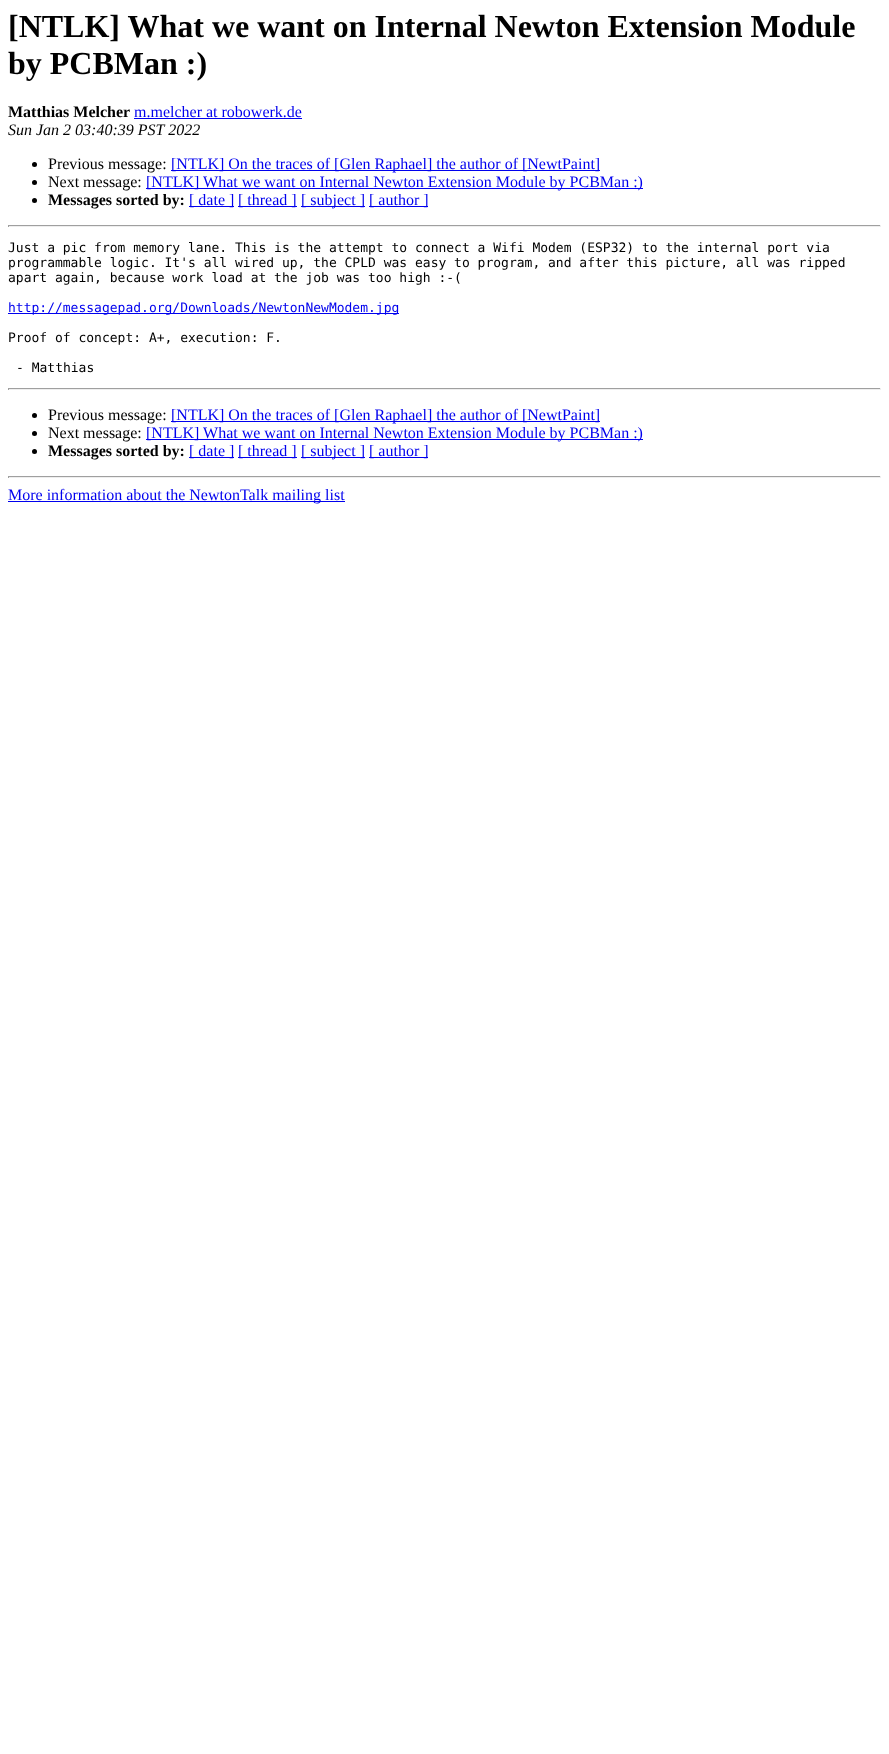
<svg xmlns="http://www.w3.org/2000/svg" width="889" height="1754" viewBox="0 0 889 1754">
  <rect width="100%" height="100%" fill="#fff"/>
  <path d="M134 118h168v1H134z" fill="#00e"/>
  <circle cx="34.5" cy="164.5" r="2.5" fill="#000"/>
  <path d="M171 170h429v1H171z" fill="#00e"/>
  <circle cx="34.5" cy="182.5" r="2.5" fill="#000"/>
  <path d="M146 188h497v1H146z" fill="#00e"/>
  <circle cx="34.5" cy="200.5" r="2.5" fill="#000"/>
  <path d="M189 206h45v1H189z" fill="#00e"/>
  <path d="M238 206h59v1H238z" fill="#00e"/>
  <path d="M301 206h64v1H301z" fill="#00e"/>
  <path d="M369 206h59v1H369z" fill="#00e"/>
  <path d="M8 225h873v1H8z" fill="#9f9f9f"/>
  <path d="M880 225h1v2H880z" fill="#eee"/>
  <path d="M8 226h873v1H8z" fill="#eee"/>
  <path d="M8 225h1v2H8z" fill="#9f9f9f"/>
  <path d="M8 313h391v1H8z" fill="#00e"/>
  <path d="M8 388h873v1H8z" fill="#9f9f9f"/>
  <path d="M880 388h1v2H880z" fill="#eee"/>
  <path d="M8 389h873v1H8z" fill="#eee"/>
  <path d="M8 388h1v2H8z" fill="#9f9f9f"/>
  <circle cx="34.5" cy="415.5" r="2.5" fill="#000"/>
  <path d="M171 421h429v1H171z" fill="#00e"/>
  <circle cx="34.5" cy="433.5" r="2.5" fill="#000"/>
  <path d="M146 439h497v1H146z" fill="#00e"/>
  <circle cx="34.5" cy="451.5" r="2.5" fill="#000"/>
  <path d="M189 457h45v1H189z" fill="#00e"/>
  <path d="M238 457h59v1H238z" fill="#00e"/>
  <path d="M301 457h64v1H301z" fill="#00e"/>
  <path d="M369 457h59v1H369z" fill="#00e"/>
  <path d="M8 476h873v1H8z" fill="#9f9f9f"/>
  <path d="M880 476h1v2H880z" fill="#eee"/>
  <path d="M8 477h873v1H8z" fill="#eee"/>
  <path d="M8 476h1v2H8z" fill="#9f9f9f"/>
  <path d="M8 501h337v1H8z" fill="#00e"/>
  <g font-family="Liberation Serif" font-size="32" font-weight="bold" fill="#000">
    <text x="8" y="37">[NTLK] What we want on Internal Newton Extension Module</text>
    <text x="8" y="74">by PCBMan :)</text>
  </g>
  <text x="8" y="117" font-family="Liberation Serif" font-size="16" font-weight="bold" fill="#000">Matthias Melcher</text>
  <text x="134" y="117" font-family="Liberation Serif" font-size="16" fill="#00e">m.melcher at robowerk.de</text>
  <text x="8" y="135" font-family="Liberation Serif" font-size="16" font-style="italic" fill="#000">Sun Jan 2 03:40:39 PST 2022</text>
  <text x="48" y="169" font-family="Liberation Serif" font-size="16" fill="#000">Previous message:</text>
  <text x="171" y="169" font-family="Liberation Serif" font-size="16" fill="#00e">[NTLK] On the traces of [Glen Raphael] the author of [NewtPaint]</text>
  <text x="48" y="187" font-family="Liberation Serif" font-size="16" fill="#000">Next message:</text>
  <text x="146" y="187" font-family="Liberation Serif" font-size="16" fill="#00e">[NTLK] What we want on Internal Newton Extension Module by PCBMan :)</text>
  <text x="48" y="205" font-family="Liberation Serif" font-size="16" font-weight="bold" fill="#000">Messages sorted by:</text>
  <g font-family="Liberation Serif" font-size="16" fill="#00e">
    <text x="189" y="205">[ date ]</text>
    <text x="238" y="205">[ thread ]</text>
    <text x="301" y="205">[ subject ]</text>
    <text x="369" y="205">[ author ]</text>
  </g>
  <g font-family="DejaVu Sans Mono" font-size="13" fill="#000">
    <text x="8" y="252">Just a pic from memory lane. This is the attempt to connect a Wifi Modem (ESP32) to the internal port via</text>
    <text x="8" y="267">programmable logic. It's all wired up, the CPLD was easy to program, and after this picture, all was ripped</text>
    <text x="8" y="282">apart again, because work load at the job was too high :-(</text>
  </g>
  <text x="8" y="312" font-family="DejaVu Sans Mono" font-size="13" fill="#00e">http://messagepad.org/Downloads/NewtonNewModem.jpg</text>
  <g font-family="DejaVu Sans Mono" font-size="13" fill="#000">
    <text x="8" y="342">Proof of concept: A+, execution: F.</text>
    <text x="16" y="372">- Matthias</text>
  </g>
  <text x="48" y="420" font-family="Liberation Serif" font-size="16" fill="#000">Previous message:</text>
  <text x="171" y="420" font-family="Liberation Serif" font-size="16" fill="#00e">[NTLK] On the traces of [Glen Raphael] the author of [NewtPaint]</text>
  <text x="48" y="438" font-family="Liberation Serif" font-size="16" fill="#000">Next message:</text>
  <text x="146" y="438" font-family="Liberation Serif" font-size="16" fill="#00e">[NTLK] What we want on Internal Newton Extension Module by PCBMan :)</text>
  <text x="48" y="456" font-family="Liberation Serif" font-size="16" font-weight="bold" fill="#000">Messages sorted by:</text>
  <g font-family="Liberation Serif" font-size="16" fill="#00e">
    <text x="189" y="456">[ date ]</text>
    <text x="238" y="456">[ thread ]</text>
    <text x="301" y="456">[ subject ]</text>
    <text x="369" y="456">[ author ]</text>
    <text x="8" y="500">More information about the NewtonTalk mailing list</text>
  </g>
</svg>
